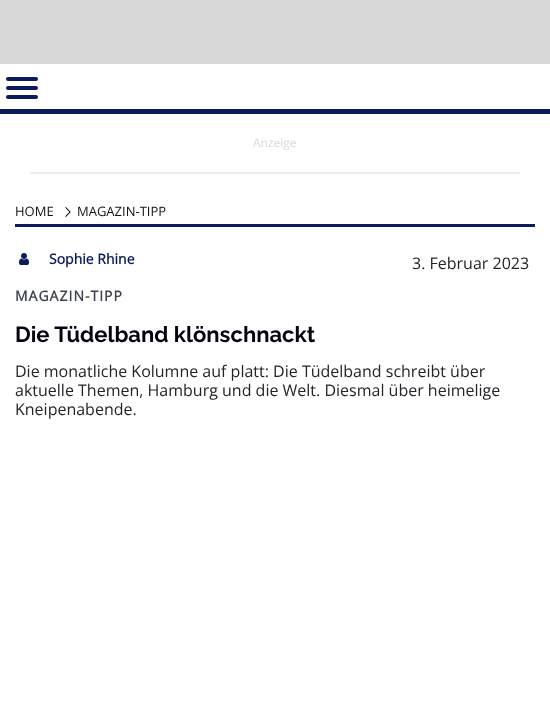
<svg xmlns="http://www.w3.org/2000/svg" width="550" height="727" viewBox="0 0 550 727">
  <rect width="100%" height="100%" fill="#d8d8d8"/>
  <path d="M0 64h550v663H0z" fill="#fff"/>
  <path d="M0 109h550v5H0z" fill="#0c1c5a"/>
  <rect x="6" y="77" width="32" height="4" rx="2" fill="#0c1c5a"/>
  <rect x="6" y="86" width="32" height="4" rx="2" fill="#0c1c5a"/>
  <rect x="6" y="95" width="32" height="4" rx="2" fill="#0c1c5a"/>
  <path d="M30 172h490v2H30z" fill="#ebebeb"/>
  <path d="M15 224h520v3H15z" fill="#0c1c5a"/>
  <image x="65" y="207" width="6" height="10" href="img/1.png"/>
  <image x="19" y="253" width="10" height="12" href="img/2.png"/>
  <text x="253" y="147" font-family="Open Sans" font-size="12" fill="#d8d8d8">Anzeige</text>
  <g font-family="Open Sans" font-size="13" fill="#111">
    <text x="15" y="216">HOME</text>
    <text x="77" y="216">MAGAZIN-TIPP</text>
  </g>
  <text x="49" y="264" font-family="Open Sans" font-size="14" font-weight="bold" fill="#0c1c5a">Sophie Rhine</text>
  <text x="412" y="269" font-family="Open Sans" font-size="16" fill="#212529">3. Februar 2023</text>
  <text x="15" y="301" font-family="Open Sans" font-size="14" font-weight="bold" letter-spacing="1" fill="#3f4351">MAGAZIN-TIPP</text>
  <text x="15" y="342" font-family="Raleway" font-size="22" font-weight="bold" fill="#02050f">Die Tüdelband klönschnackt</text>
  <g font-family="Open Sans" font-size="16" fill="#212529">
    <text x="15" y="377">Die monatliche Kolumne auf platt: Die Tüdelband schreibt über</text>
    <text x="15" y="396">aktuelle Themen, Hamburg und die Welt. Diesmal über heimelige</text>
    <text x="15" y="415">Kneipenabende.</text>
  </g>
</svg>
